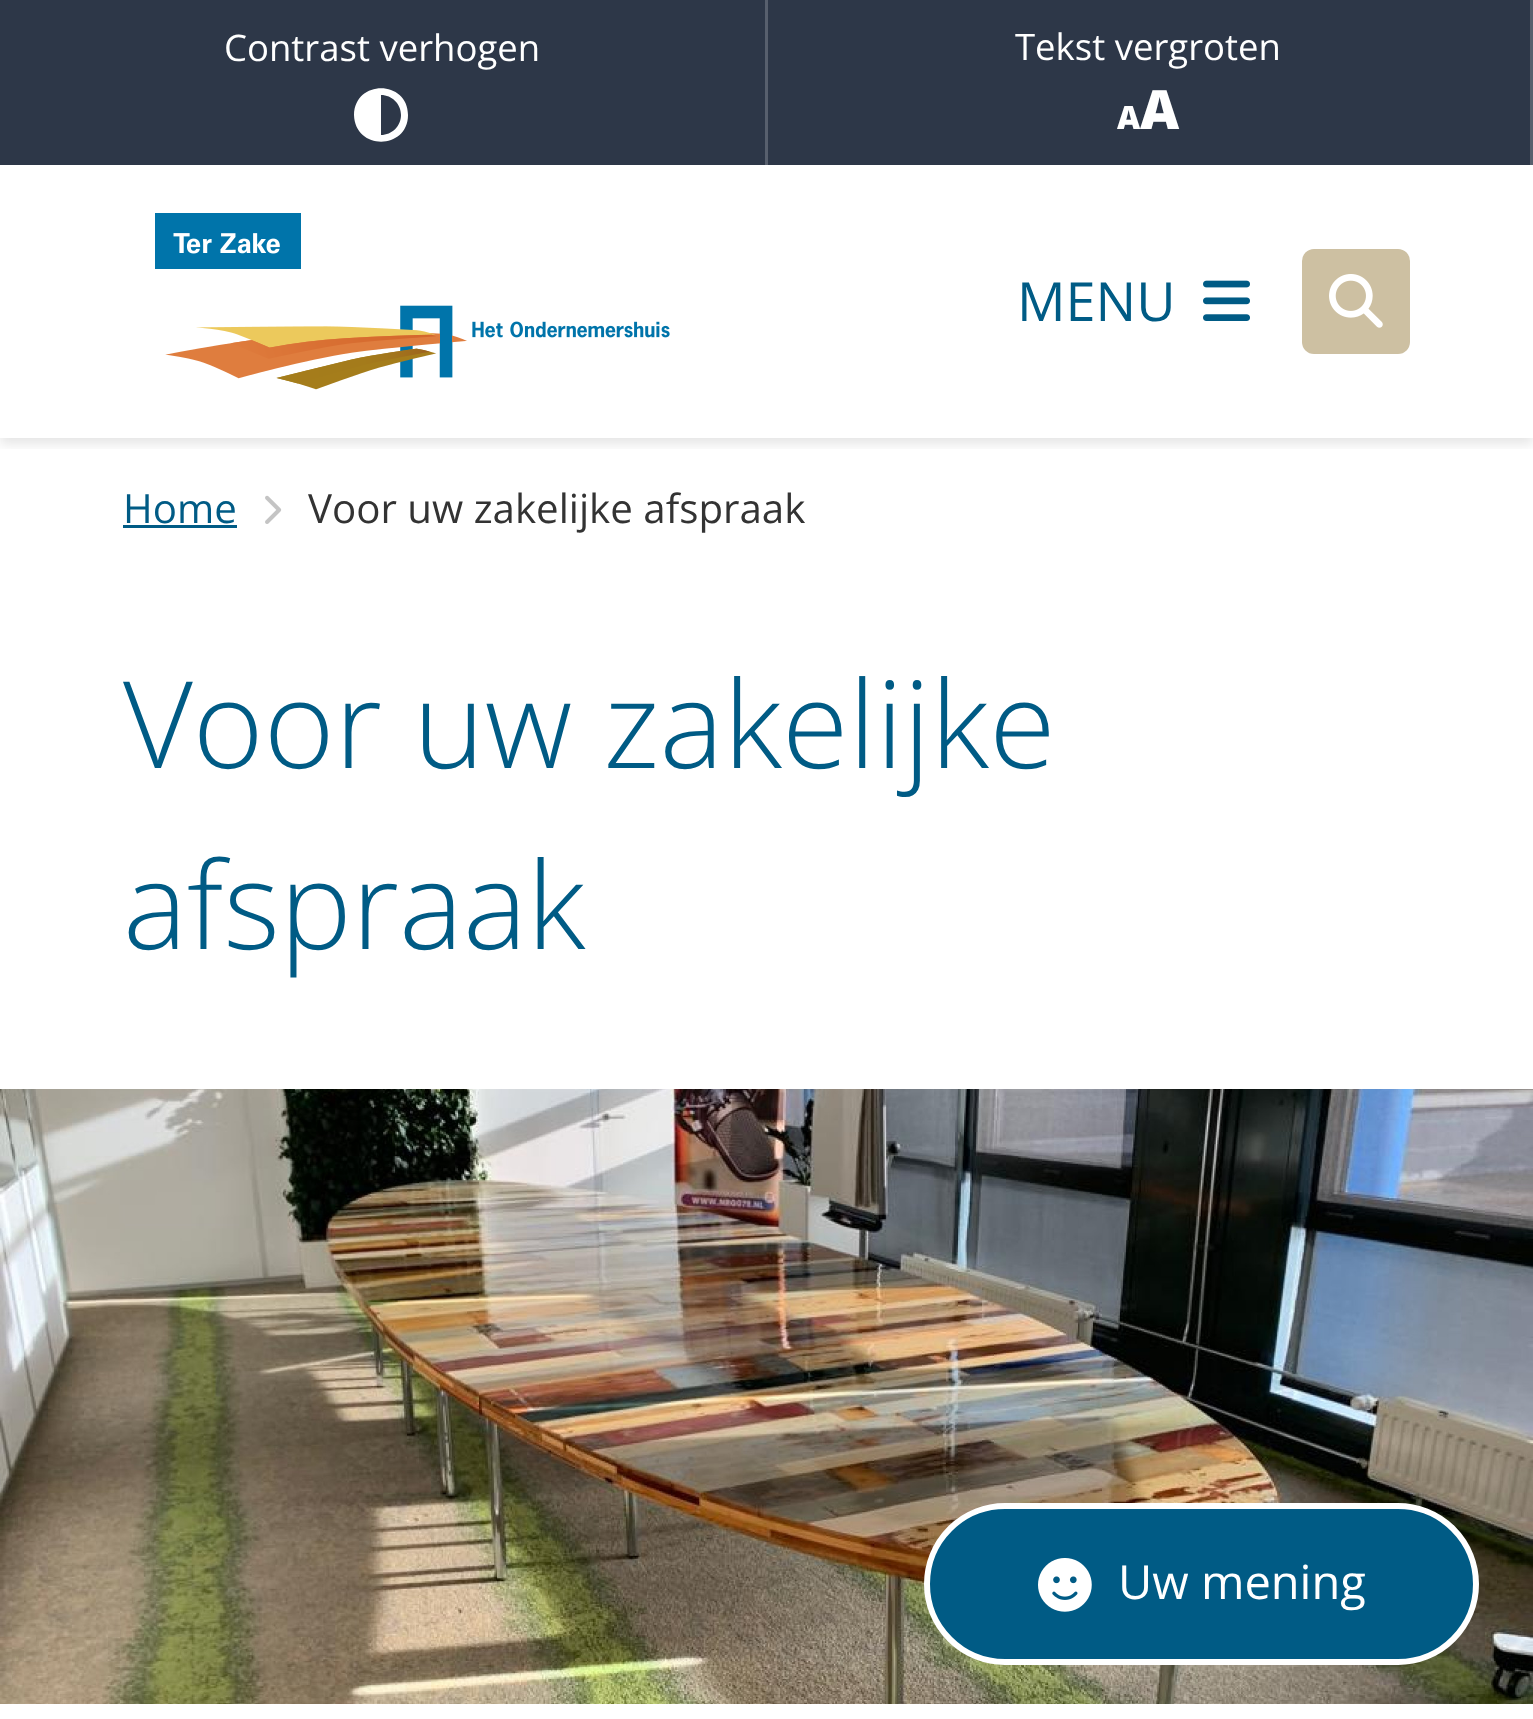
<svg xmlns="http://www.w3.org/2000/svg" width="1533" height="1719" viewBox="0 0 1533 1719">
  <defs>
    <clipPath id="clip1"><path d="M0 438h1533v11H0z"/></clipPath>
  </defs>
  <rect width="100%" height="100%" fill="#fff"/>
  <path d="M0 0h765v165H0z" fill="#2d3748"/>
  <path d="M765 0h3v165H765z" fill="#575f6d"/>
  <path d="M401 115C401 104 392 95 381 95V135C392 135 401 126 401 115ZM354 115C355 79 408 80 408 115C408 150 355 151 354 115Z" fill="#fff"/>
  <path d="M768 0h762v165H768z" fill="#2d3748"/>
  <path d="M1530 0h3v165H1530z" fill="#575f6d"/>
  <g clip-path="url(#clip1)">
    <path d="M0 171h1533v273H0z" fill="#0000001a" filter="blur(6px)"/>
  </g>
  <image x="155" y="213" width="515" height="177" href="img/1.png"/>
  <image x="1203" y="280" width="47" height="41" href="img/2.png"/>
  <rect x="1302" y="249" width="108" height="105" rx="12" fill="#cdc0a2"/>
  <image x="1329" y="274" width="54" height="54" href="img/3.png"/>
  <path d="M123 525h114v3H123z" fill="#005b85"/>
  <image x="265" y="495" width="17" height="29" href="img/4.png"/>
  <image x="0" y="1089" width="1533" height="615" href="img/5.png"/>
  <rect x="927" y="1506" width="549" height="156" rx="78" fill="#005b85" stroke="#fff" stroke-width="6"/>
  <image x="1038" y="1558" width="54" height="54" href="img/6.png"/>
  <g font-family="Open Sans" font-size="36.5" fill="#fff">
    <text x="224" y="61">Contrast verhogen</text>
    <text x="1015" y="60">Tekst vergroten</text>
  </g>
  <text x="1117" y="129" font-family="Noto Sans" font-size="32" font-weight="900" fill="#fff">A</text>
  <text x="1140" y="129" font-family="Open Sans" font-size="54" font-weight="800" fill="#fff">A</text>
  <text x="1017" y="321" font-family="Open Sans" font-size="54" fill="#005b85">MENU</text>
  <text x="123" y="523" font-family="Open Sans" font-size="40.25" fill="#005b85">Home</text>
  <text x="308" y="523" font-family="Open Sans" font-size="40.25" fill="#333">Voor uw zakelijke afspraak</text>
  <g font-family="Open Sans" font-size="121" font-weight="300" fill="#005b85">
    <text x="123" y="768">Voor uw zakelijke</text>
    <text x="123" y="949">afspraak</text>
  </g>
  <text x="1118" y="1599" font-family="Open Sans" font-size="47" fill="#fff">Uw mening</text>
</svg>
